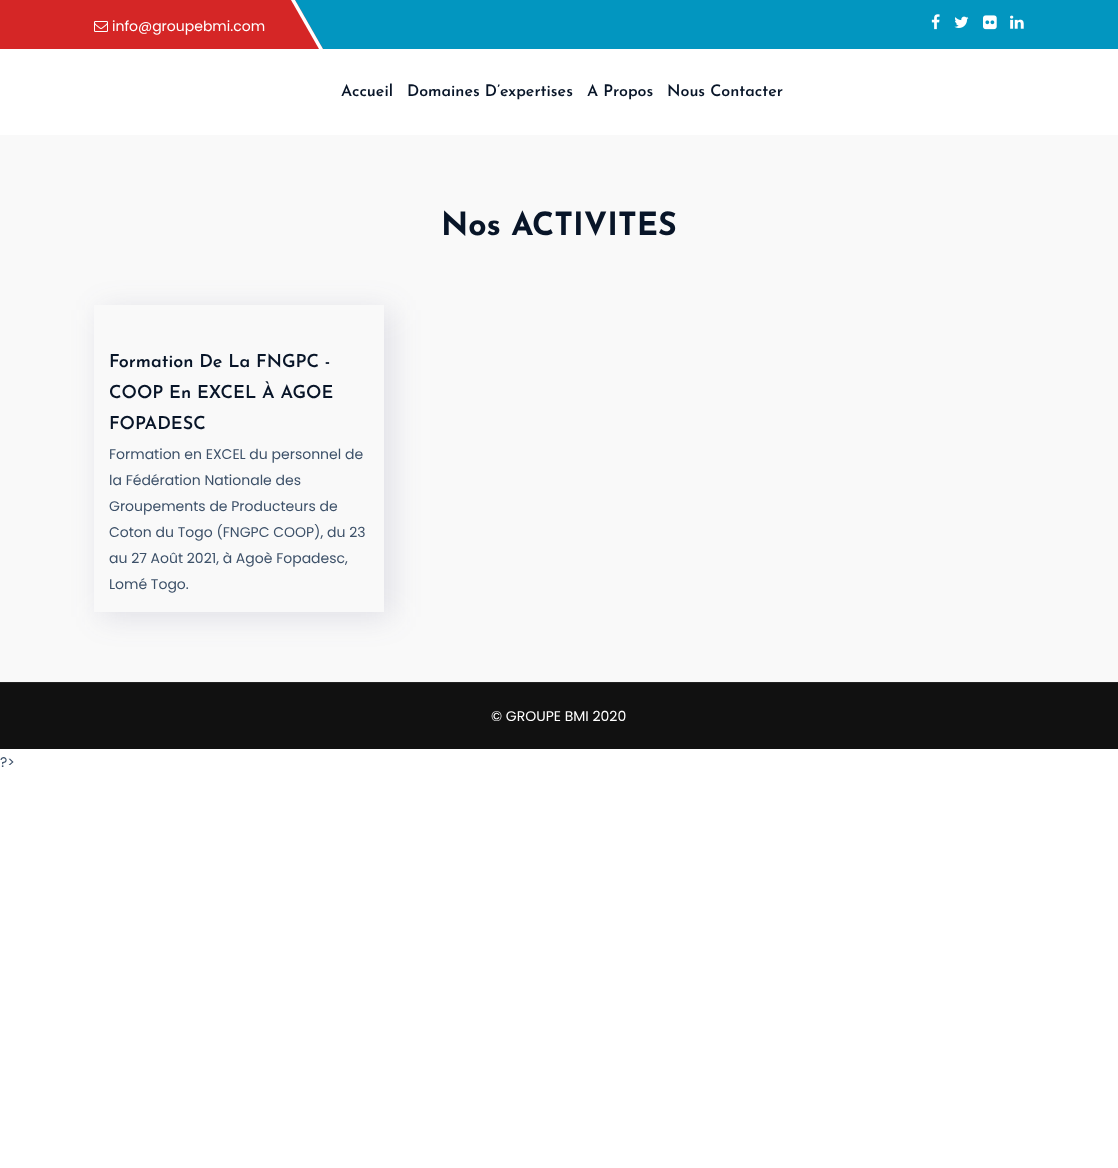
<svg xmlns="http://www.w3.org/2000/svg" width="1118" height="1168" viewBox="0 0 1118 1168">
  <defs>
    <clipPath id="clip1"><path d="M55 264H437V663H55ZM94 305H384V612H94Z" clip-rule="evenodd"/></clipPath>
  </defs>
  <rect width="100%" height="100%" fill="#fff"/>
  <path d="M295 0h823v49H295z" fill="#0296c0"/>
  <path d="M-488 0H295L323 49H-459Z" fill="#d52626"/>
  <path d="M291 0H295L323 49H319Z" fill="#fff"/>
  <image x="94" y="21" width="14" height="11" href="img/1.png"/>
  <image x="931" y="14" width="9" height="16" href="img/2.png"/>
  <image x="954" y="16" width="15" height="12" href="img/3.png"/>
  <image x="983" y="15" width="14" height="15" href="img/4.png"/>
  <image x="1010" y="15" width="14" height="14" href="img/5.png"/>
  <path d="M0 135h1118v547H0z" fill="#f9f9f9"/>
  <g clip-path="url(#clip1)">
    <path d="M101 310h290v307H101z" fill="#48497926" filter="blur(15px)"/>
  </g>
  <path d="M0 683h1118v66H0z" fill="#111"/>
  <path d="M0 682h1118v1H0z" fill="#222"/>
  <text x="112" y="31" font-family="Poppins" font-size="14" fill="#fff">info@groupebmi.com</text>
  <g font-family="Josefin Sans" font-size="16" font-weight="600" fill="#081528">
    <text x="341" y="96">Accueil</text>
    <text x="407" y="96">Domaines D’expertises</text>
    <text x="587" y="96">A Propos</text>
    <text x="667" y="96">Nous Contacter</text>
  </g>
  <text x="441" y="235" font-family="Josefin Sans" font-size="32" font-weight="bold" fill="#081528">Nos ACTIVITES</text>
  <g font-family="Josefin Sans" font-size="18" font-weight="600" fill="#081528">
    <text x="109" y="367">Formation De La FNGPC -</text>
    <text x="109" y="398">COOP En EXCEL À AGOE</text>
    <text x="109" y="429">FOPADESC</text>
  </g>
  <g font-family="Poppins" font-size="14" fill="#3d5169">
    <text x="109" y="459">Formation en EXCEL du personnel de</text>
    <text x="109" y="485">la Fédération Nationale des</text>
    <text x="109" y="511">Groupements de Producteurs de</text>
    <text x="109" y="537">Coton du Togo (FNGPC COOP), du 23</text>
    <text x="109" y="563">au 27 Août 2021, à Agoè Fopadesc,</text>
    <text x="109" y="589">Lomé Togo.</text>
  </g>
  <text x="491" y="721" font-family="Poppins" font-size="14" fill="#fff">© GROUPE BMI 2020</text>
  <text x="0" y="767" font-family="Poppins" font-size="14" fill="#3d5169">?&gt;</text>
</svg>
